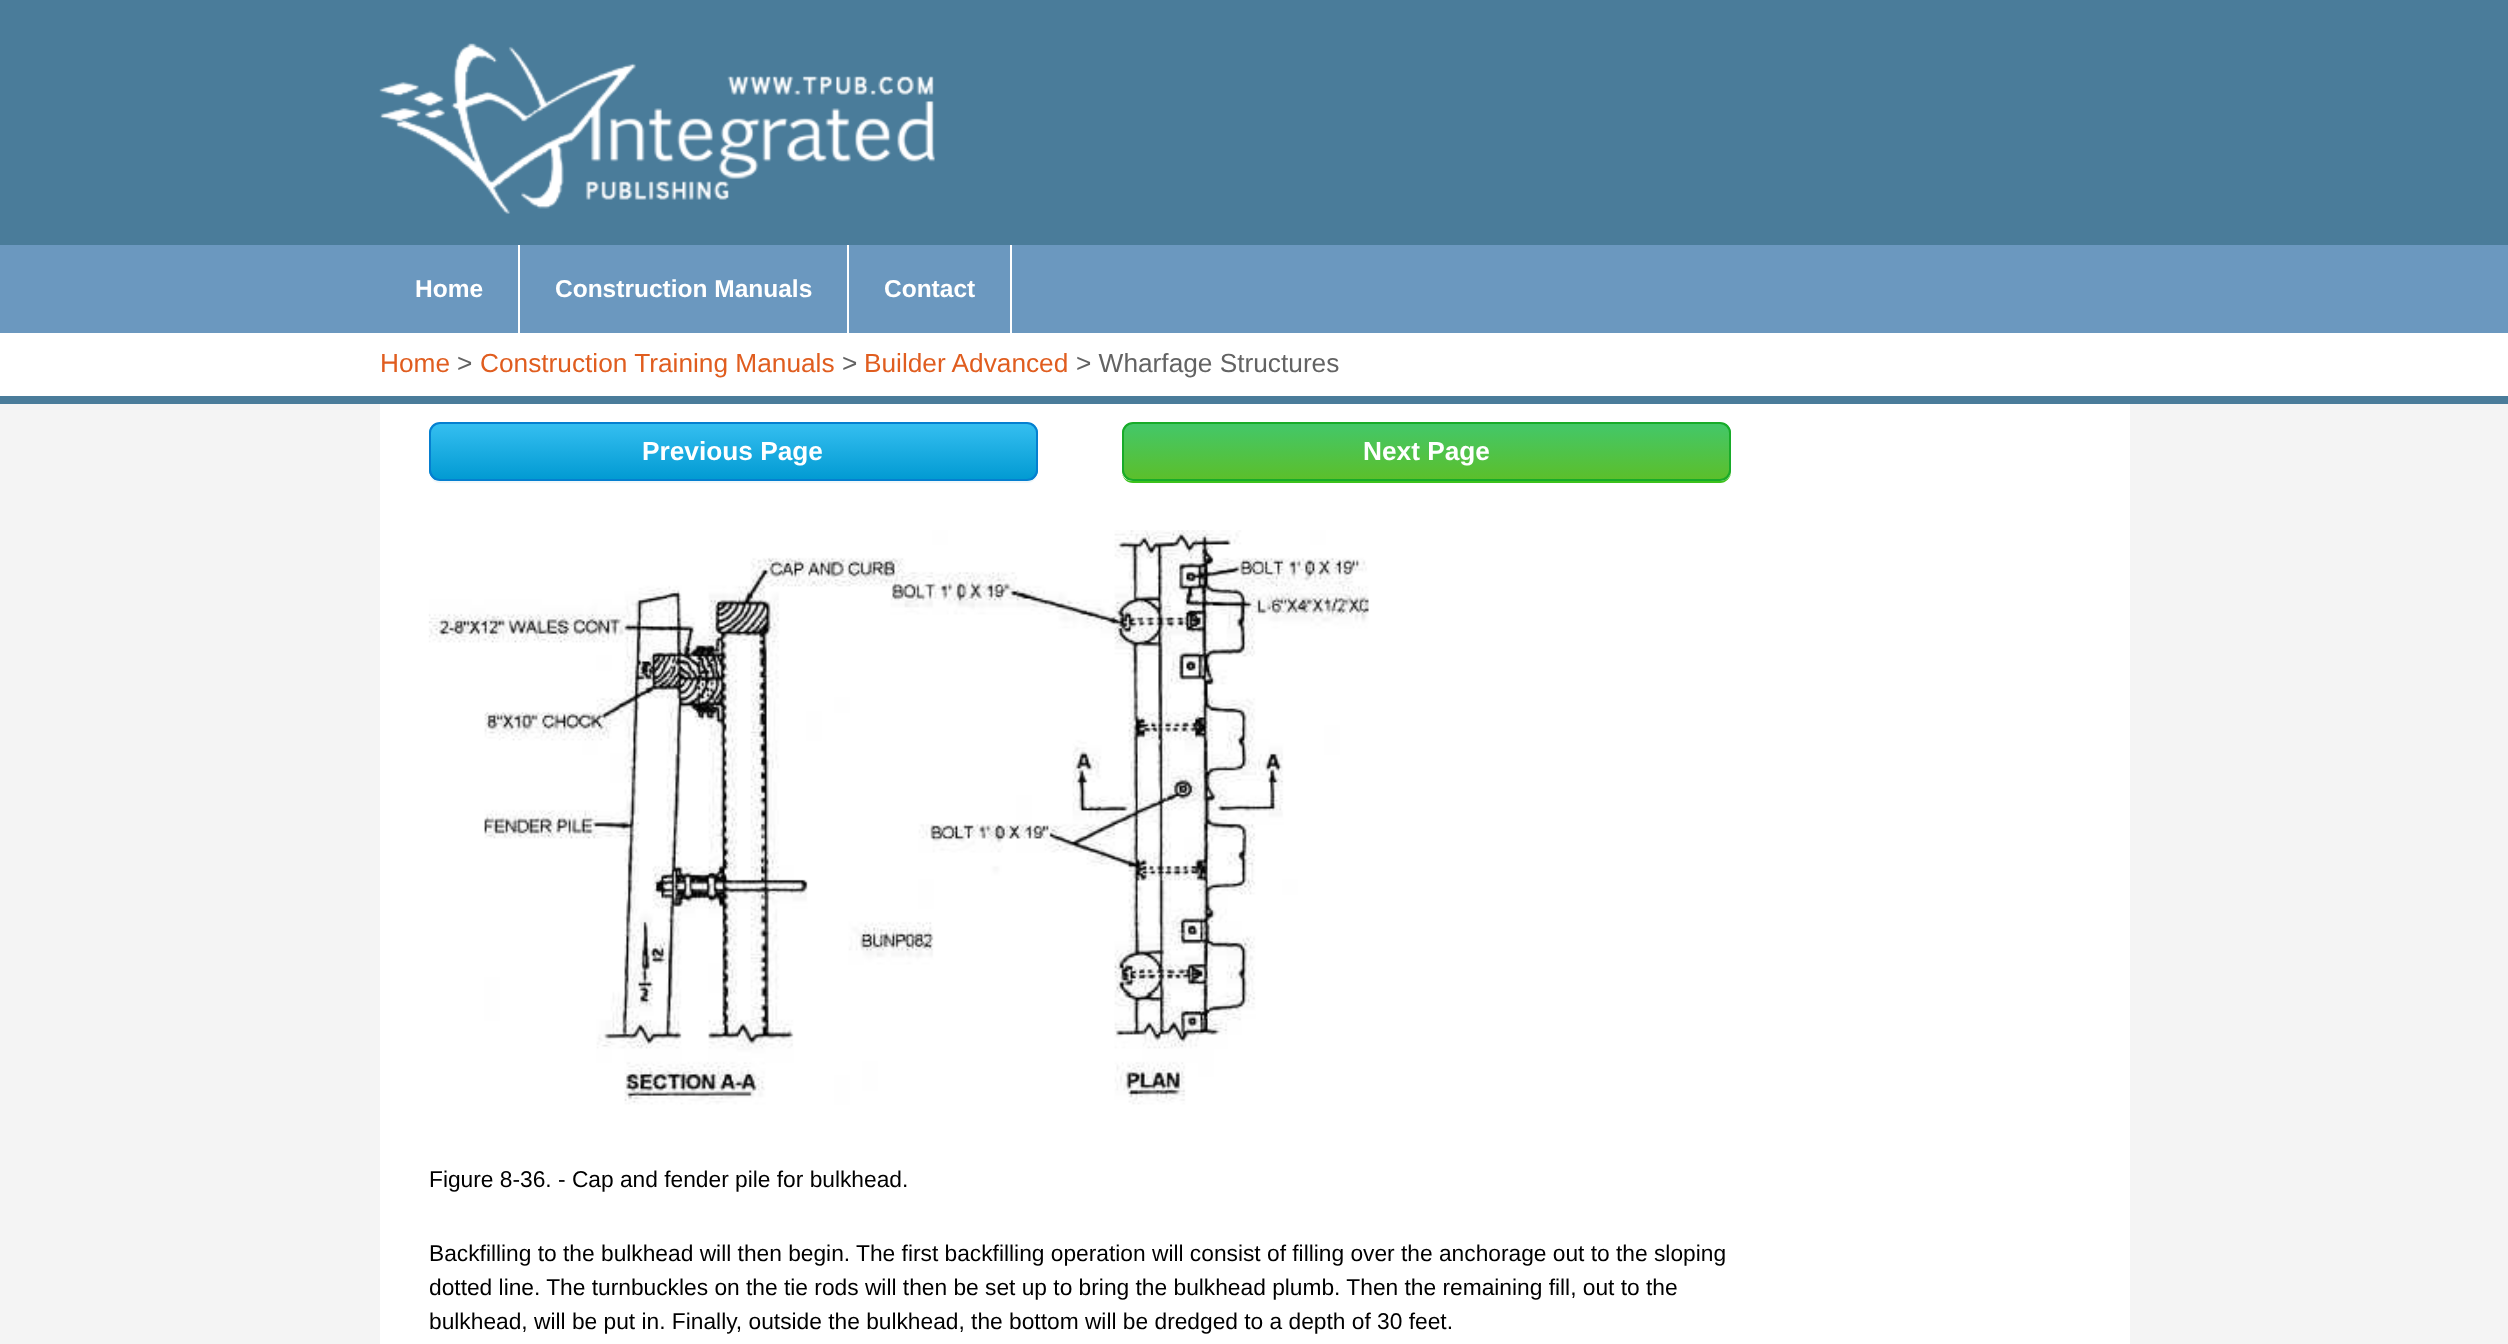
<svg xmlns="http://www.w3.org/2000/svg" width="2508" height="1344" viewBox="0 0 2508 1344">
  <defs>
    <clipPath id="clip1"><rect x="429" y="422" width="609" height="59" rx="11"/></clipPath>
    <linearGradient id="g1" gradientUnits="userSpaceOnUse" x1="733" y1="423" x2="733" y2="480"><stop offset="0.05" stop-color="#33bdef"/><stop offset="1" stop-color="#019ad2"/></linearGradient>
    <clipPath id="clip2"><rect x="1122" y="422" width="609" height="59" rx="11"/></clipPath>
    <linearGradient id="g2" gradientUnits="userSpaceOnUse" x1="1426" y1="423" x2="1426" y2="480"><stop offset="0.05" stop-color="#44c767"/><stop offset="1" stop-color="#5cbf2a"/></linearGradient>
  </defs>
  <rect width="100%" height="100%" fill="#f4f4f4"/>
  <path d="M0 0h2508v404H0z" fill="#4a7c9a"/>
  <image x="379" y="43" width="556" height="171" href="img/1.png"/>
  <path d="M0 245h2508v88H0z" fill="#6b98bf"/>
  <path d="M518 245h2v88H518z" fill="#fff"/>
  <path d="M847 245h2v88H847z" fill="#fff"/>
  <path d="M1010 245h2v88H1010z" fill="#fff"/>
  <path d="M0 333h2508v63H0z" fill="#fff"/>
  <path d="M380 404h1750v940H380z" fill="#fff"/>
  <path d="M429 473C430 479 434 483 440 483H1027C1033 483 1038 478 1038 472V433V471C1038 477 1033 481 1027 481H439C434 481 430 478 429 473Z" fill="#f0f7fa"/>
  <g clip-path="url(#clip1)">
    <path d="M429 424h609v56H429z" fill="url(#g1)"/>
  </g>
  <rect x="430" y="423" width="607" height="57" rx="10" fill="none" stroke="#057fd0" stroke-width="2"/>
  <path d="M1122 473C1123 479 1127 483 1133 483H1720C1726 483 1731 478 1731 472V433V471C1731 477 1726 481 1720 481H1132C1127 481 1123 478 1122 473Z" fill="#3dc21b"/>
  <g clip-path="url(#clip2)">
    <path d="M1122 424h609v56H1122z" fill="url(#g2)"/>
  </g>
  <rect x="1123" y="423" width="607" height="57" rx="10" fill="none" stroke="#18ab29" stroke-width="2"/>
  <image x="428" y="530" width="941" height="575" href="img/2.png"/>
  <g font-family="Liberation Sans" font-size="24.5" font-weight="bold" fill="#fff">
    <text x="415" y="297">Home</text>
    <text x="555" y="297">Construction Manuals</text>
    <text x="884" y="297">Contact</text>
  </g>
  <text x="380" y="372" font-family="Liberation Sans" font-size="26.25" fill="#e05d1f">Home</text>
  <text x="457" y="372" font-family="Liberation Sans" font-size="26.25" fill="#636363">&gt;</text>
  <text x="480" y="372" font-family="Liberation Sans" font-size="26.25" fill="#e05d1f">Construction Training Manuals</text>
  <text x="842" y="372" font-family="Liberation Sans" font-size="26.25" fill="#636363">&gt;</text>
  <text x="864" y="372" font-family="Liberation Sans" font-size="26.25" fill="#e05d1f">Builder Advanced</text>
  <text x="1076" y="372" font-family="Liberation Sans" font-size="26.25" fill="#636363">&gt; Wharfage Structures</text>
  <g font-family="Liberation Sans" font-size="26.25" font-weight="bold" fill="#fff">
    <text x="642" y="460">Previous Page</text>
    <text x="1363" y="460">Next Page</text>
  </g>
  <g font-family="Liberation Sans" font-size="22.75" fill="#000">
    <text x="429" y="1187">Figure 8-36. - Cap and fender pile for bulkhead.</text>
    <text x="429" y="1261">Backfilling to the bulkhead will then begin. The first backfilling operation will consist of filling over the anchorage out to the sloping</text>
    <text x="429" y="1295">dotted line. The turnbuckles on the tie rods will then be set up to bring the bulkhead plumb. Then the remaining fill, out to the</text>
    <text x="429" y="1329">bulkhead, will be put in. Finally, outside the bulkhead, the bottom will be dredged to a depth of 30 feet.</text>
  </g>
</svg>
